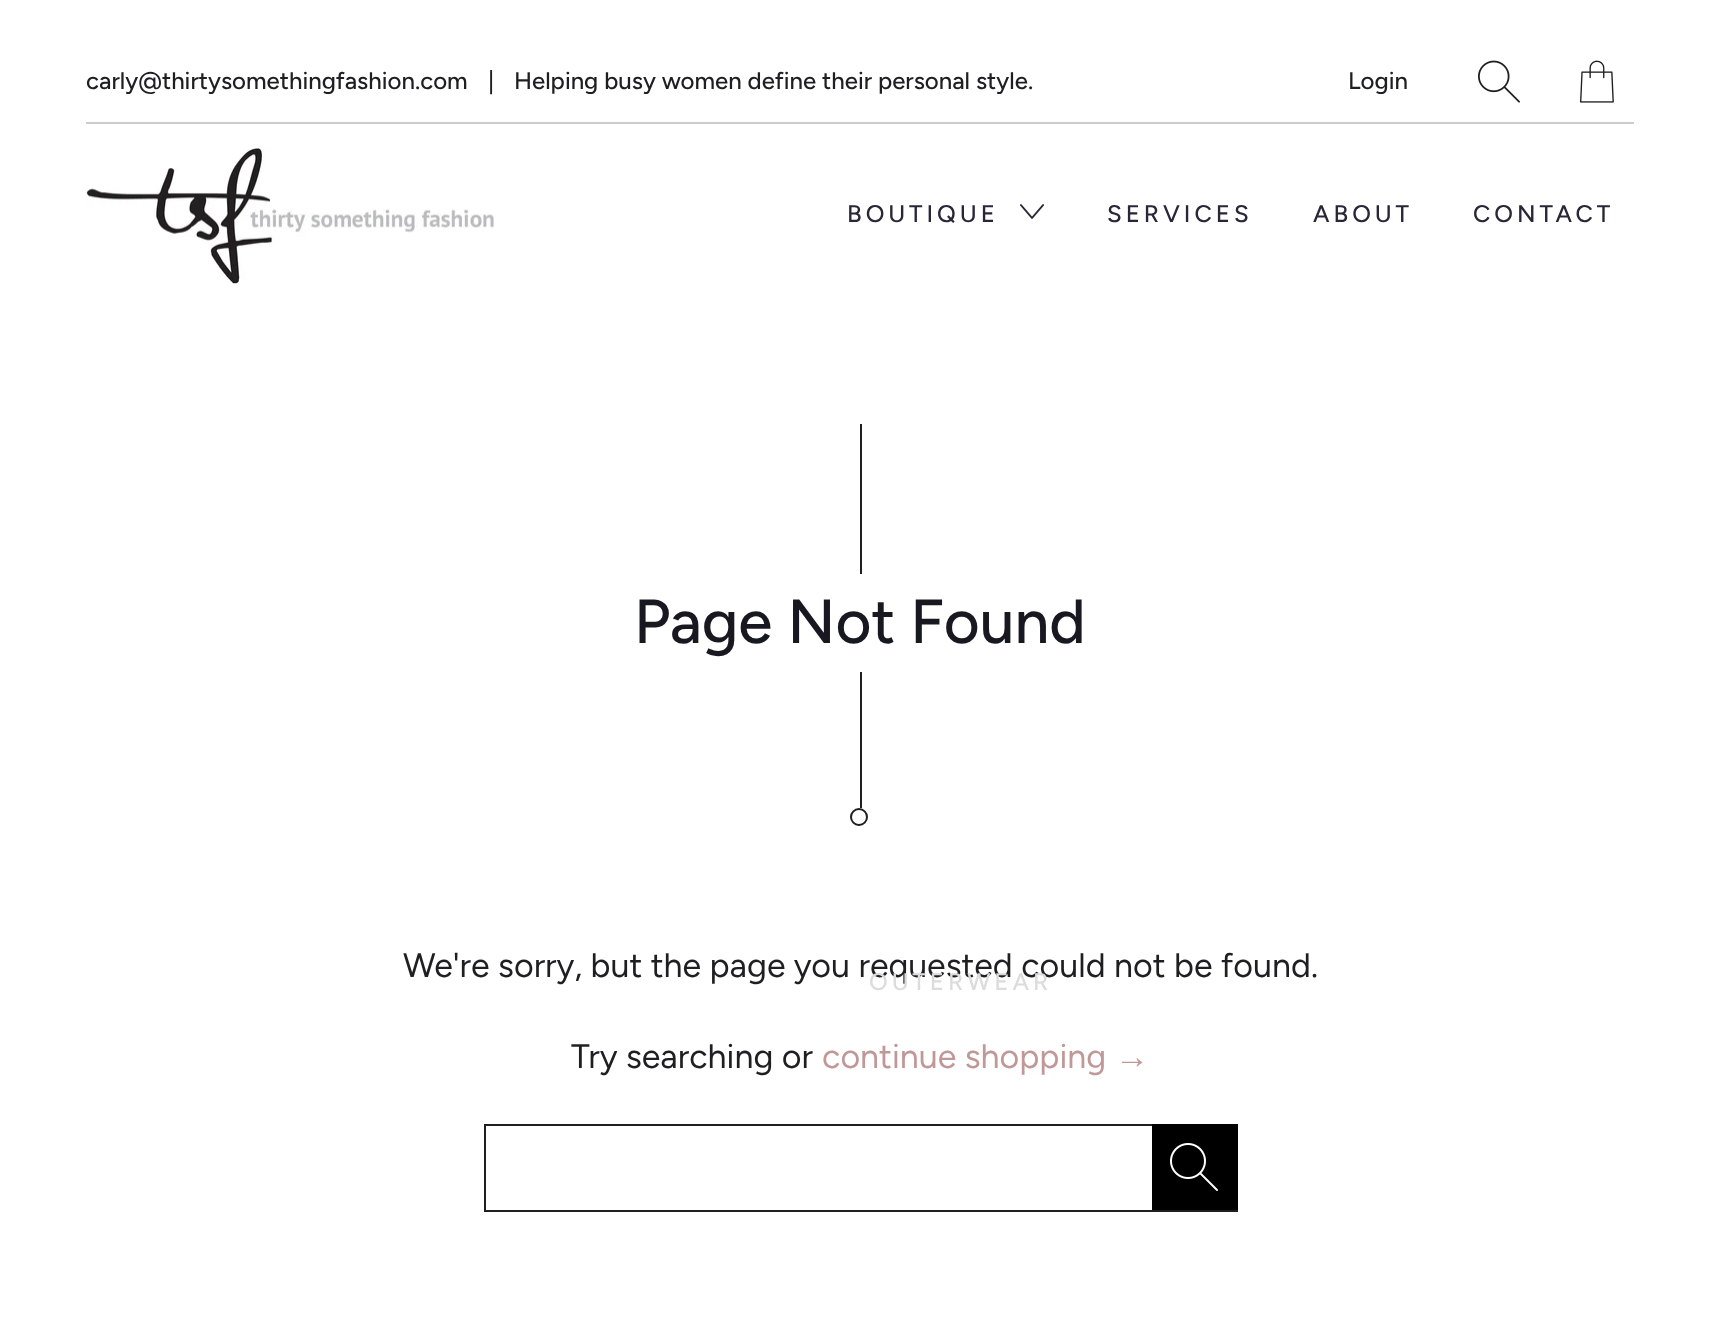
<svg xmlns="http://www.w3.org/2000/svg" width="1719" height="1330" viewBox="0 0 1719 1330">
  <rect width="100%" height="100%" fill="#fff"/>
  <path d="M86 122h1548v2H86z" fill="#ccc"/>
  <image x="1478" y="60" width="42" height="43" href="img/1.png"/>
  <image x="1580" y="60" width="34" height="43" href="img/2.png"/>
  <image x="86" y="148" width="408" height="136" href="img/3.png"/>
  <image x="1020" y="204" width="24" height="15" href="img/4.png"/>
  <path d="M860 424h2v150H860z" fill="#1f1f21"/>
  <path d="M860 672h2v136H860z" fill="#1f1f21"/>
  <circle cx="859" cy="817" r="8" fill="none" stroke="#1f1f21" stroke-width="2"/>
  <path d="M485 1125h752v86H485z" fill="none" stroke="#1f1f21" stroke-width="2"/>
  <path d="M1152 1124h86v86H1152z" fill="#000"/>
  <image x="1170" y="1143" width="48" height="48" href="img/5.png"/>
  <g font-family="Figtree" font-size="24" font-weight="500" fill="#1f1f21">
    <text x="86" y="89">carly@thirtysomethingfashion.com</text>
    <text x="488" y="89">|</text>
    <text x="514" y="89">Helping busy women define their personal style.</text>
    <text x="1348" y="89">Login</text>
  </g>
  <g font-family="Figtree" font-size="24" font-weight="500" letter-spacing="4" fill="#272737">
    <text x="847" y="222">BOUTIQUE</text>
    <text x="1107" y="222">SERVICES</text>
    <text x="1313" y="222">ABOUT</text>
    <text x="1473" y="222">CONTACT</text>
  </g>
  <text x="634" y="643" font-family="Figtree" font-size="62" font-weight="500" fill="#181821">Page Not Found</text>
  <text x="403" y="977" font-family="Figtree" font-size="34" fill="#1f1f21">We're sorry, but the page you requested could not be found.</text>
  <text x="869" y="990" font-family="Figtree" font-size="24" font-weight="500" letter-spacing="4" fill="#dcdcdd">OUTERWEAR</text>
  <text x="571" y="1068" font-family="Figtree" font-size="34" fill="#1f1f21">Try searching or</text>
  <text x="822" y="1068" font-family="Figtree" font-size="34" fill="#c19898">continue shopping</text>
  <text x="1115" y="1068" font-family="Liberation Sans" font-size="34" fill="#c19898">→</text>
</svg>
